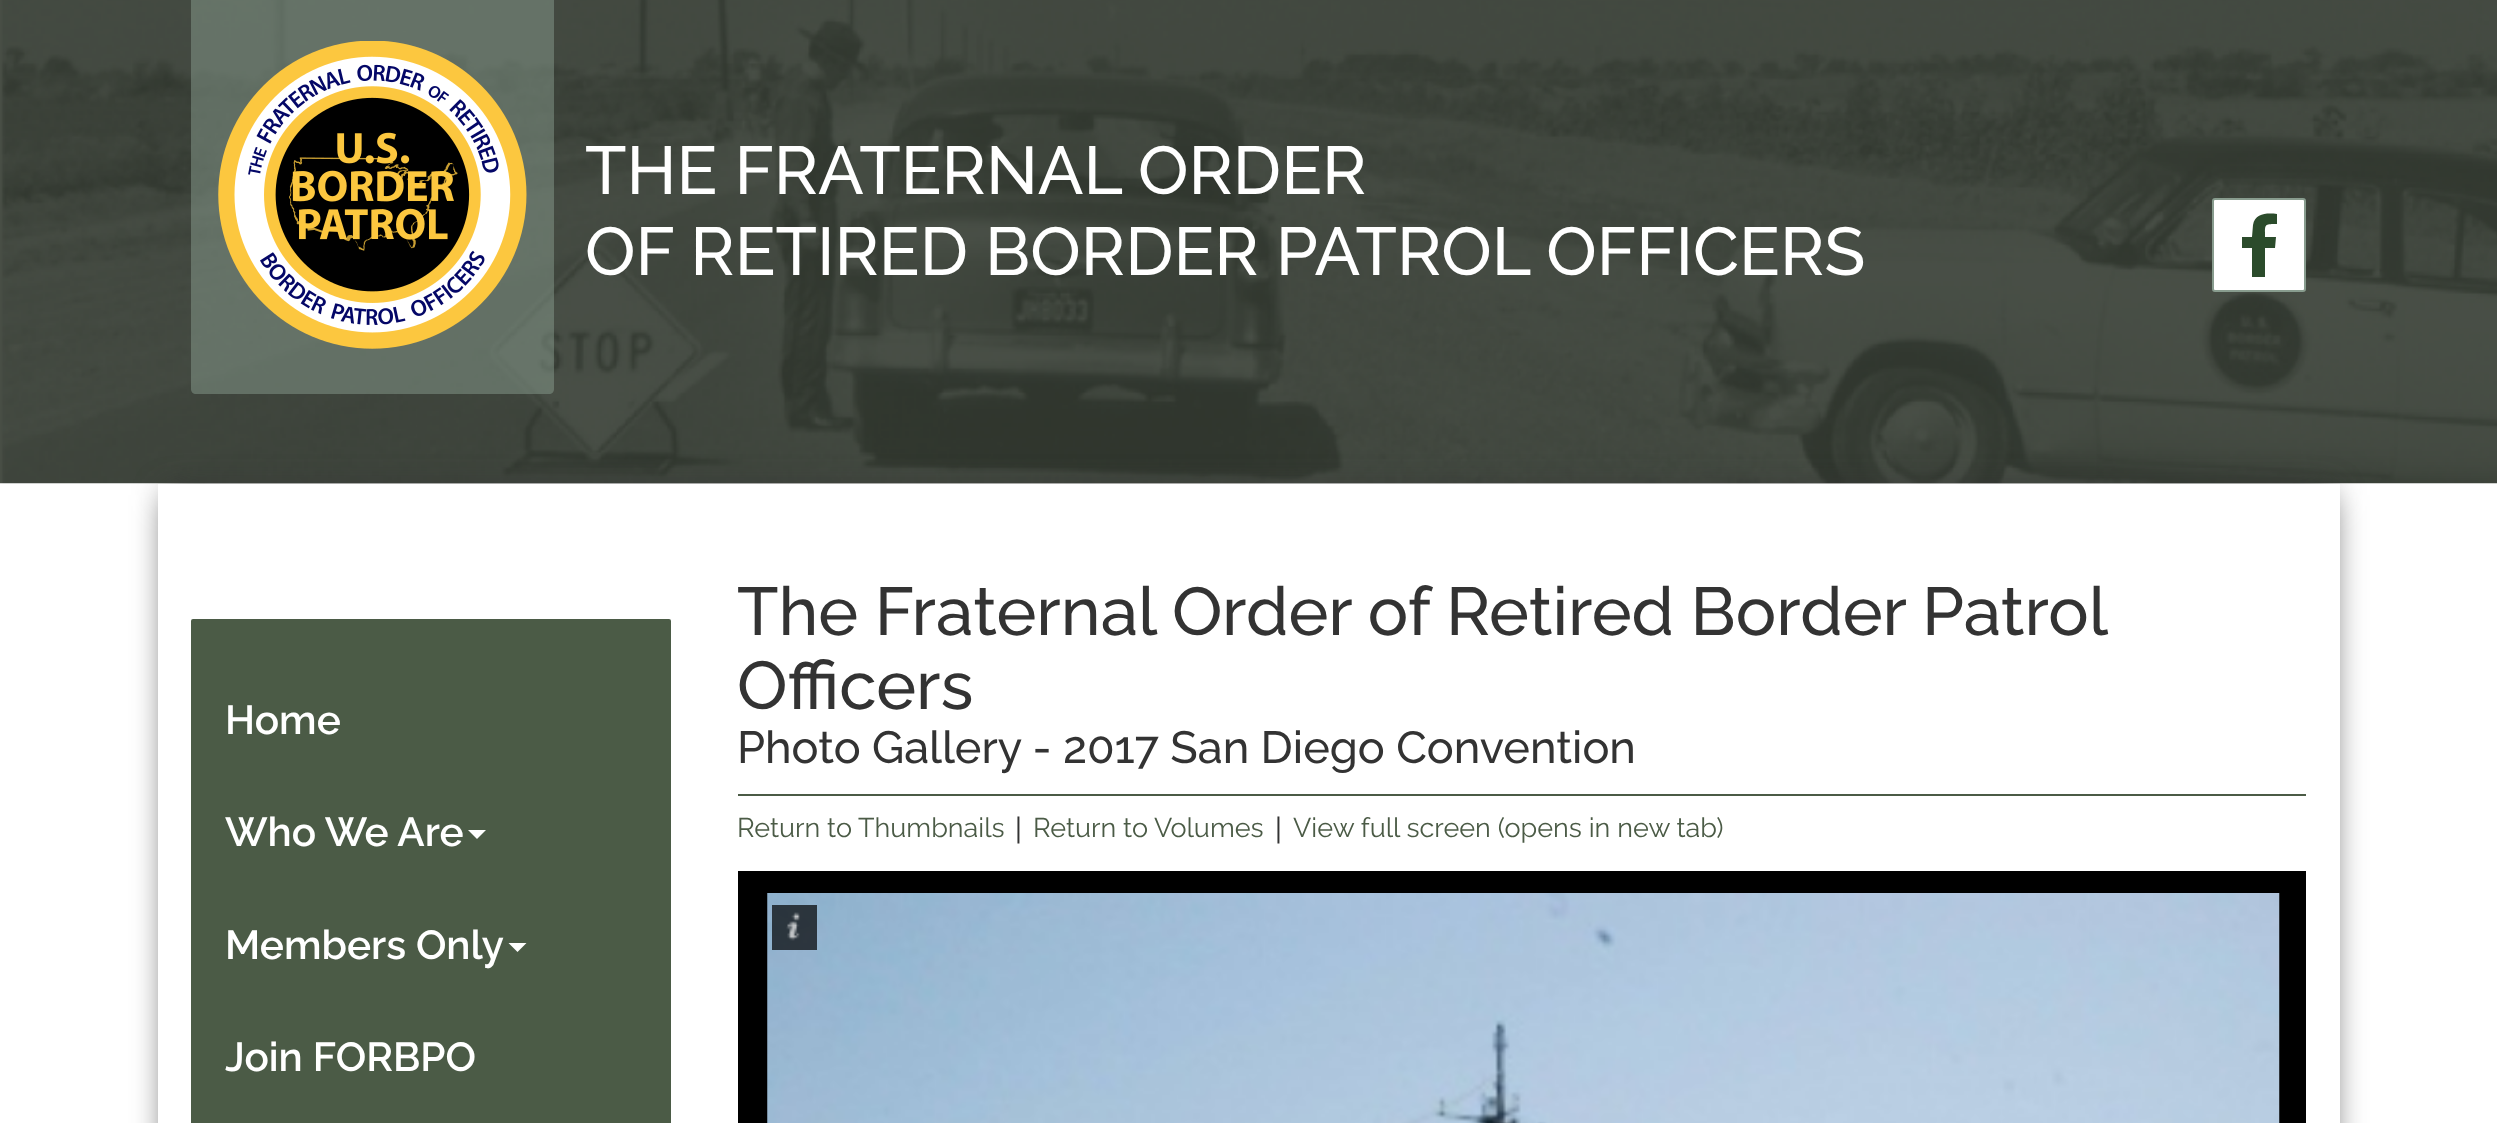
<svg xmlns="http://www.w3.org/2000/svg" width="2497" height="1123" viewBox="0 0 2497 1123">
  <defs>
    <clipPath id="clip1"><path d="M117 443H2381V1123H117ZM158 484H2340V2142H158Z" clip-rule="evenodd"/></clipPath>
  </defs>
  <rect width="100%" height="100%" fill="#fff"/>
  <image x="0" y="0" width="2497" height="484" href="img/1.png"/>
  <path d="M191-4H554V389C554 392 552 394 549 394H196C193 394 191 392 191 389Z" fill="#889c8e80"/>
  <image x="218" y="41" width="309" height="308" href="img/2.png"/>
  <rect x="2213" y="199" width="92" height="92" rx="2" fill="#fff" stroke="#889c8e" stroke-width="2"/>
  <path d="M2265 277V248H2275L2276 237H2265C2265 224 2264 224 2277 224V214C2267 213 2255 213 2253 225L2252 237H2242V248H2252V277Z" fill="#2b4b2b"/>
  <g clip-path="url(#clip1)">
    <path d="M169 495h2160v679H169z" fill="#333" filter="blur(17px)"/>
  </g>
  <rect x="191" y="619" width="480" height="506" rx="2" fill="#4b5b46"/>
  <path d="M468 830H486L477 839Z" fill="#fff"/>
  <path d="M508.5 943H526.5L517.5 952Z" fill="#fff"/>
  <path d="M738 794h1568v2H738z" fill="#4b5b46"/>
  <path d="M738 871h1568v252H738z" fill="#000"/>
  <image x="767" y="893" width="1513" height="230" href="img/3.png"/>
  <path d="M772 905h45v45H772z" fill="#000000b3"/>
  <image x="786" y="912" width="14" height="29" href="img/4.png"/>
  <g font-family="Raleway" font-size="67.5" font-weight="500" fill="#fff">
    <text x="585" y="194">THE FRATERNAL ORDER</text>
    <text x="585" y="275">OF RETIRED BORDER PATROL OFFICERS</text>
  </g>
  <g font-family="Raleway" font-size="40.5" font-weight="600" fill="#fff">
    <text x="225" y="734">Home</text>
    <text x="225" y="846">Who We Are</text>
    <text x="225" y="959">Members Only</text>
    <text x="225" y="1071">Join FORBPO</text>
  </g>
  <g font-family="Raleway" font-size="67.5" font-weight="500" fill="#333">
    <text x="737" y="635" word-spacing="-0.5">The Fraternal Order of Retired Border Patrol</text>
    <text x="737" y="709">Officers</text>
  </g>
  <text x="737" y="763" font-family="Raleway" font-size="45" font-weight="500" fill="#333">Photo Gallery - 2017 San Diego Convention</text>
  <text x="737" y="837" font-family="Raleway" font-size="27" fill="#4b5b46">Return to Thumbnails</text>
  <text x="1011" y="837" font-family="Noto Sans" font-size="27" fill="#333">|</text>
  <text x="1033" y="837" font-family="Raleway" font-size="27" fill="#4b5b46">Return to Volumes</text>
  <text x="1271" y="837" font-family="Noto Sans" font-size="27" fill="#333">|</text>
  <text x="1293" y="837" font-family="Raleway" font-size="27" fill="#4b5b46">View full screen (opens in new tab)</text>
</svg>
